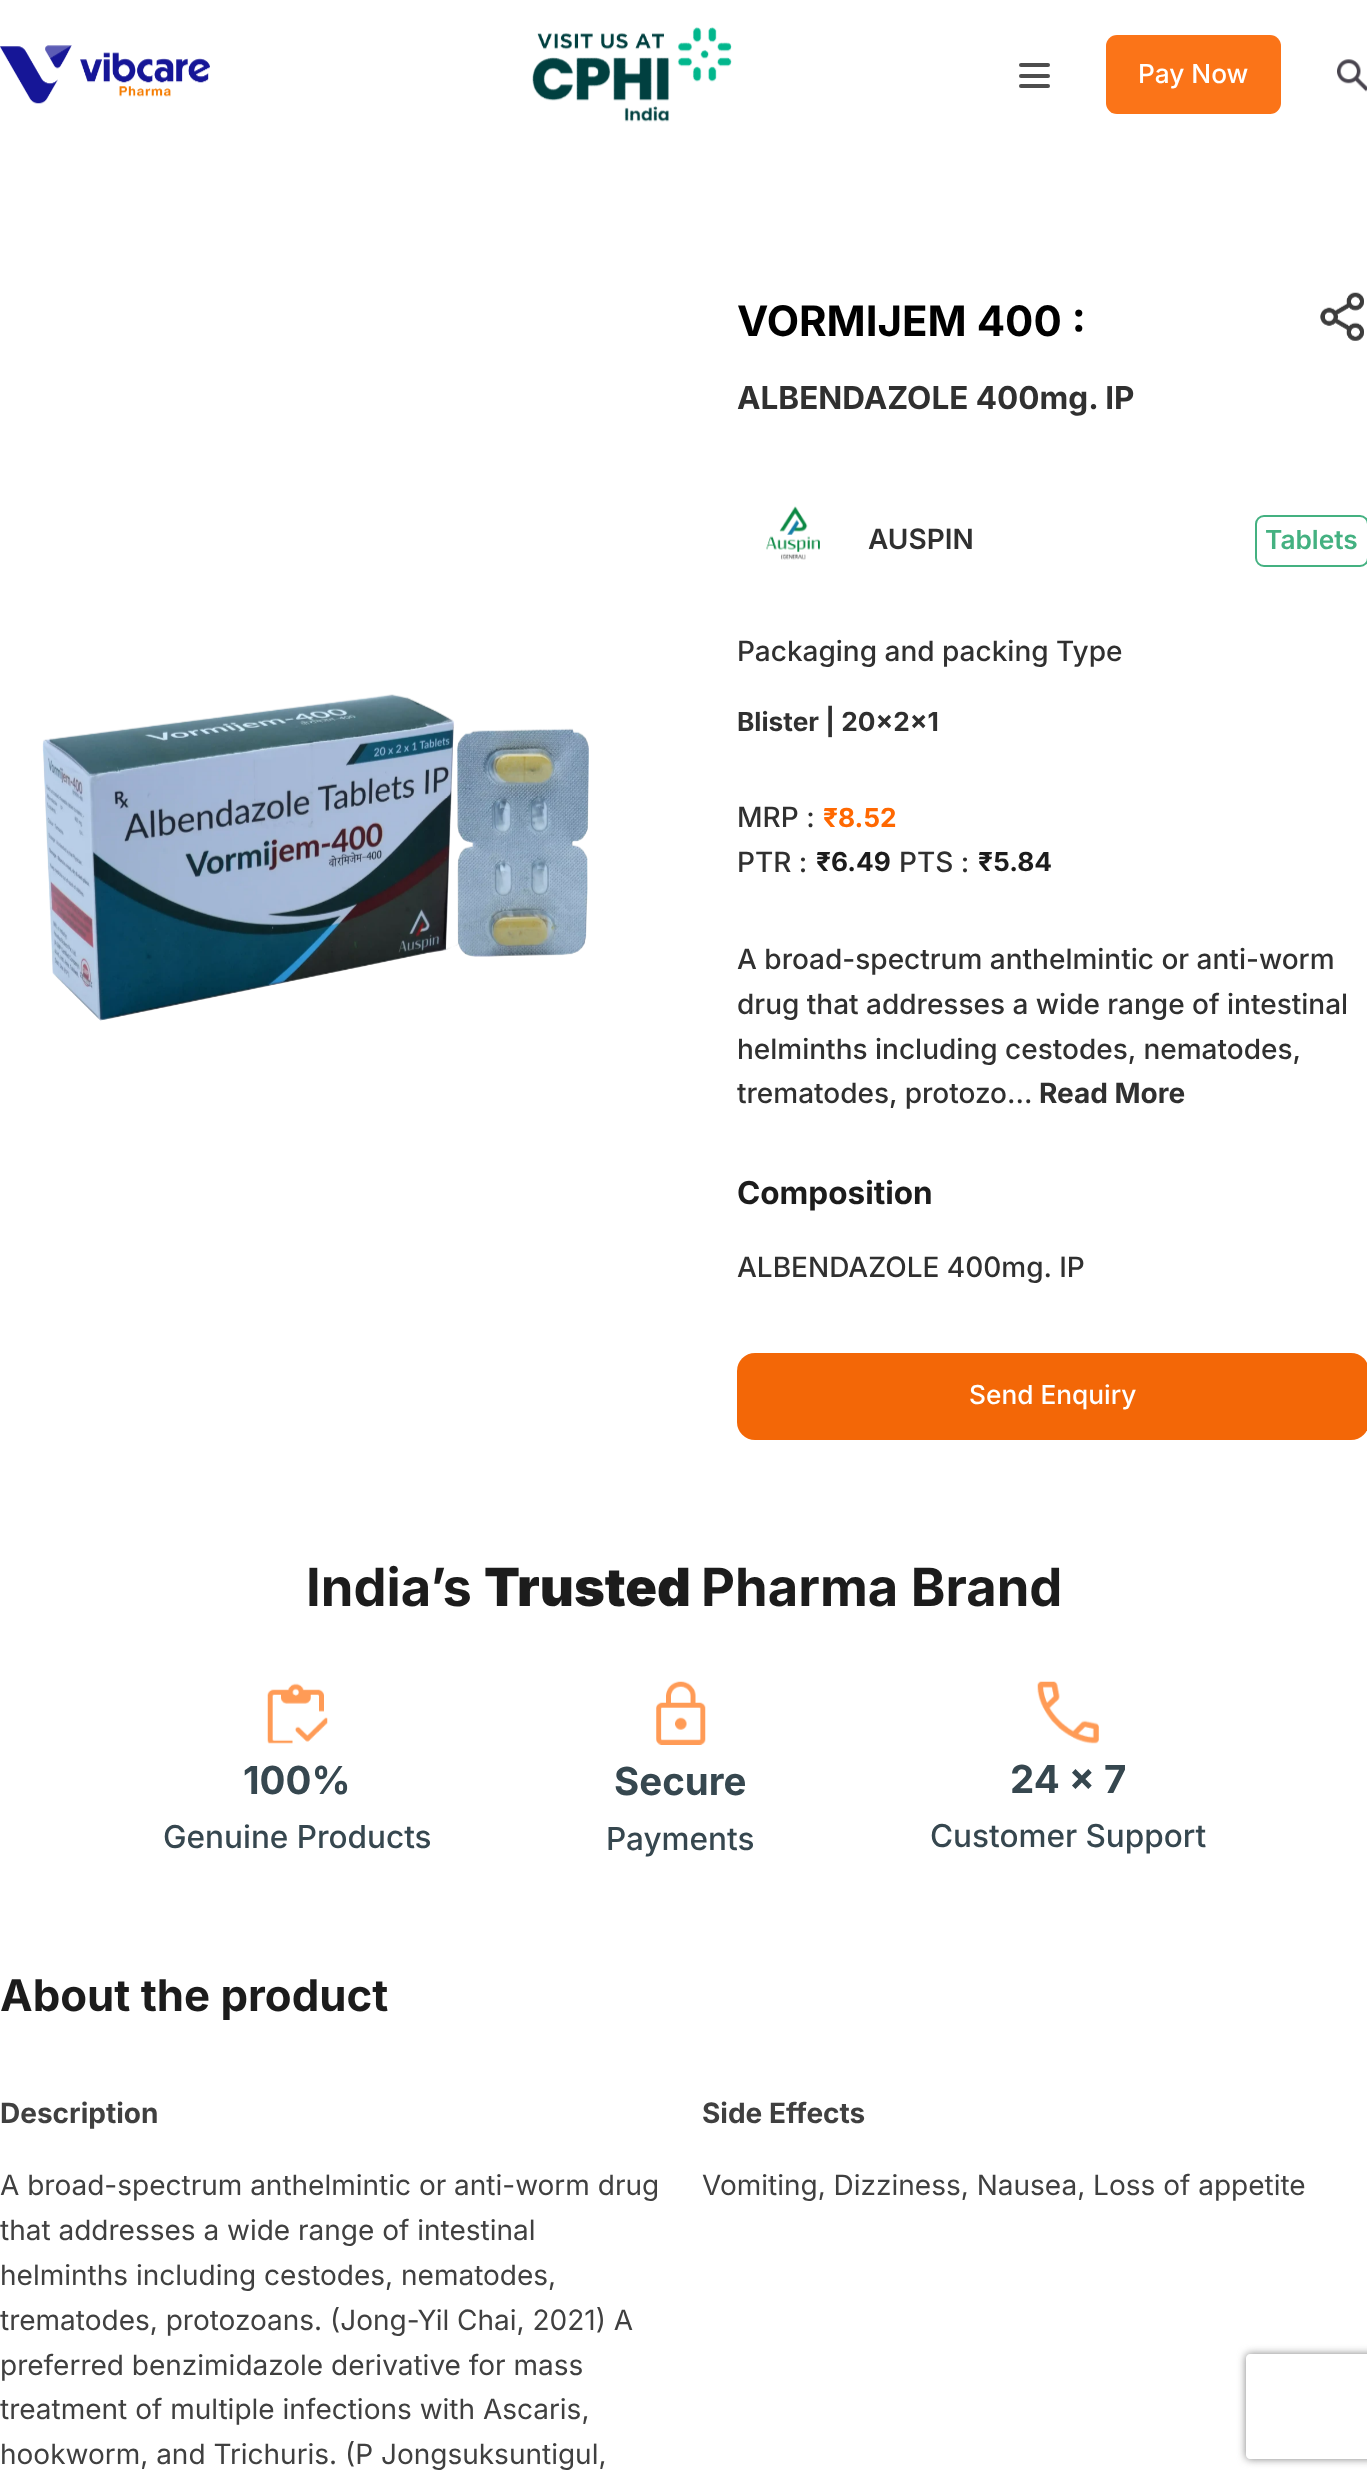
<svg xmlns="http://www.w3.org/2000/svg" width="1367" height="2482" viewBox="0 0 1367 2482">
  <defs>
    <clipPath id="clip1"><path d="M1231 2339H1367V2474H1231ZM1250 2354H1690C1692 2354 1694 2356 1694 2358V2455C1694 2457 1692 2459 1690 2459H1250C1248 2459 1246 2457 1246 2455V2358C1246 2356 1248 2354 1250 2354Z" clip-rule="evenodd"/></clipPath>
  </defs>
  <rect width="100%" height="100%" fill="#fff"/>
  <image x="0" y="45" width="210" height="59" href="img/1.png"/>
  <image x="532" y="27" width="200" height="95" href="img/2.png"/>
  <rect x="1019" y="63" width="31" height="4" rx="2" fill="#4d4d4d"/>
  <rect x="1019" y="74" width="31" height="4" rx="2" fill="#4d4d4d"/>
  <rect x="1019" y="84" width="31" height="4" rx="2" fill="#4d4d4d"/>
  <rect x="1106" y="35" width="175" height="79" rx="11" fill="#fb7418"/>
  <image x="1337" y="59" width="30" height="33" href="img/3.png"/>
  <image x="42" y="694" width="547" height="327" href="img/4.png"/>
  <image x="1320" y="292" width="44" height="49" href="img/5.png"/>
  <image x="766" y="506" width="54" height="54" href="img/6.png"/>
  <rect x="1256" y="516" width="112" height="50" rx="8" fill="none" stroke="#44b181" stroke-width="2"/>
  <rect x="737" y="1353" width="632" height="87" rx="18" fill="#f36707"/>
  <image x="267" y="1683" width="61" height="61" href="img/7.png"/>
  <image x="656" y="1681" width="50" height="64" href="img/8.png"/>
  <image x="1037" y="1681" width="62" height="63" href="img/9.png"/>
  <g clip-path="url(#clip1)">
    <rect x="1246" y="2354" width="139" height="105" rx="4" fill="#808080" filter="blur(4.5px)"/>
  </g>
  <text x="1138" y="83" font-family="Inter" font-size="26.25" font-weight="500" fill="#fff">Pay Now</text>
  <text x="737" y="336" font-family="Inter" font-size="42" font-weight="bold" fill="#000">VORMIJEM 400 :</text>
  <text x="737" y="409" font-family="Inter" font-size="31.5" font-weight="bold" fill="#303030">ALBENDAZOLE 400mg. IP</text>
  <text x="868" y="549" font-family="Inter" font-size="28" font-weight="600" fill="#303030">AUSPIN</text>
  <text x="1265" y="549" font-family="Inter" font-size="26.25" font-weight="600" fill="#44b181">Tablets</text>
  <text x="737" y="661" font-family="Inter" font-size="28" font-weight="500" fill="#303030">Packaging and packing Type</text>
  <text x="737" y="731" font-family="Inter" font-size="26.25" font-weight="bold" fill="#303030">Blister | 20x2x1</text>
  <text x="737" y="827" font-family="Inter" font-size="28" font-weight="500" fill="#303030">MRP :</text>
  <text x="823" y="827" font-family="Inter" font-size="26.25" font-weight="bold" fill="#ff6801">₹8.52</text>
  <text x="737" y="872" font-family="Inter" font-size="28" font-weight="500" fill="#303030">PTR :</text>
  <text x="816" y="871" font-family="Inter" font-size="26.25" font-weight="bold" fill="#1c1c1c">₹6.49</text>
  <text x="899" y="872" font-family="Inter" font-size="28" font-weight="500" fill="#303030">PTS :</text>
  <text x="978" y="871" font-family="Inter" font-size="26.25" font-weight="bold" fill="#1c1c1c">₹5.84</text>
  <g font-family="Inter" font-size="28" font-weight="500" fill="#303030">
    <text x="737" y="969">A broad-spectrum anthelmintic or anti-worm</text>
    <text x="737" y="1014">drug that addresses a wide range of intestinal</text>
    <text x="737" y="1059">helminths including cestodes, nematodes,</text>
    <text x="737" y="1103">trematodes, protozo...</text>
  </g>
  <text x="1039" y="1103" font-family="Inter" font-size="28" font-weight="bold" fill="#303030">Read More</text>
  <text x="737" y="1204" font-family="Inter" font-size="31.5" font-weight="bold" fill="#1c1c1c">Composition</text>
  <text x="737" y="1277" font-family="Inter" font-size="28" font-weight="500" fill="#303030">ALBENDAZOLE 400mg. IP</text>
  <text x="969" y="1404" font-family="Inter" font-size="26.25" font-weight="500" fill="#fff">Send Enquiry</text>
  <text x="306" y="1606" font-family="Inter" font-size="52.5" font-weight="bold" fill="#1c1c1c">India’s</text>
  <text x="484" y="1606" font-family="Inter" font-size="52.5" font-weight="900" fill="#1c1c1c">Trusted</text>
  <text x="701" y="1606" font-family="Inter" font-size="52.5" font-weight="bold" fill="#1c1c1c">Pharma Brand</text>
  <text x="243" y="1794" font-family="Inter" font-size="38.5" font-weight="bold" fill="#36474f">100%</text>
  <text x="163" y="1848" font-family="Inter" font-size="31.5" font-weight="500" fill="#36474f">Genuine Products</text>
  <text x="614" y="1795" font-family="Inter" font-size="38.5" font-weight="bold" fill="#36474f">Secure</text>
  <text x="606" y="1850" font-family="Inter" font-size="31.5" font-weight="500" fill="#36474f">Payments</text>
  <text x="1010" y="1793" font-family="Inter" font-size="38.5" font-weight="bold" fill="#36474f">24 x 7</text>
  <text x="930" y="1847" font-family="Inter" font-size="31.5" font-weight="500" fill="#36474f">Customer Support</text>
  <text x="0" y="2011" font-family="Inter" font-size="43.75" font-weight="bold" fill="#1c1c1c">About the product</text>
  <text x="0" y="2123" font-family="Inter" font-size="28" font-weight="bold" fill="#404040">Description</text>
  <g font-family="Inter" font-size="28" fill="#404040">
    <text x="0" y="2195">A broad-spectrum anthelmintic or anti-worm drug</text>
    <text x="0" y="2240">that addresses a wide range of intestinal</text>
    <text x="0" y="2285">helminths including cestodes, nematodes,</text>
    <text x="0" y="2330">trematodes, protozoans. (Jong-Yil Chai, 2021) A</text>
    <text x="0" y="2375">preferred benzimidazole derivative for mass</text>
    <text x="0" y="2419">treatment of multiple infections with Ascaris,</text>
    <text x="0" y="2464">hookworm, and Trichuris. (P Jongsuksuntigul,</text>
  </g>
  <text x="702" y="2123" font-family="Inter" font-size="28" font-weight="bold" fill="#404040">Side Effects</text>
  <text x="702" y="2195" font-family="Inter" font-size="28" fill="#404040">Vomiting, Dizziness, Nausea, Loss of appetite</text>
</svg>
